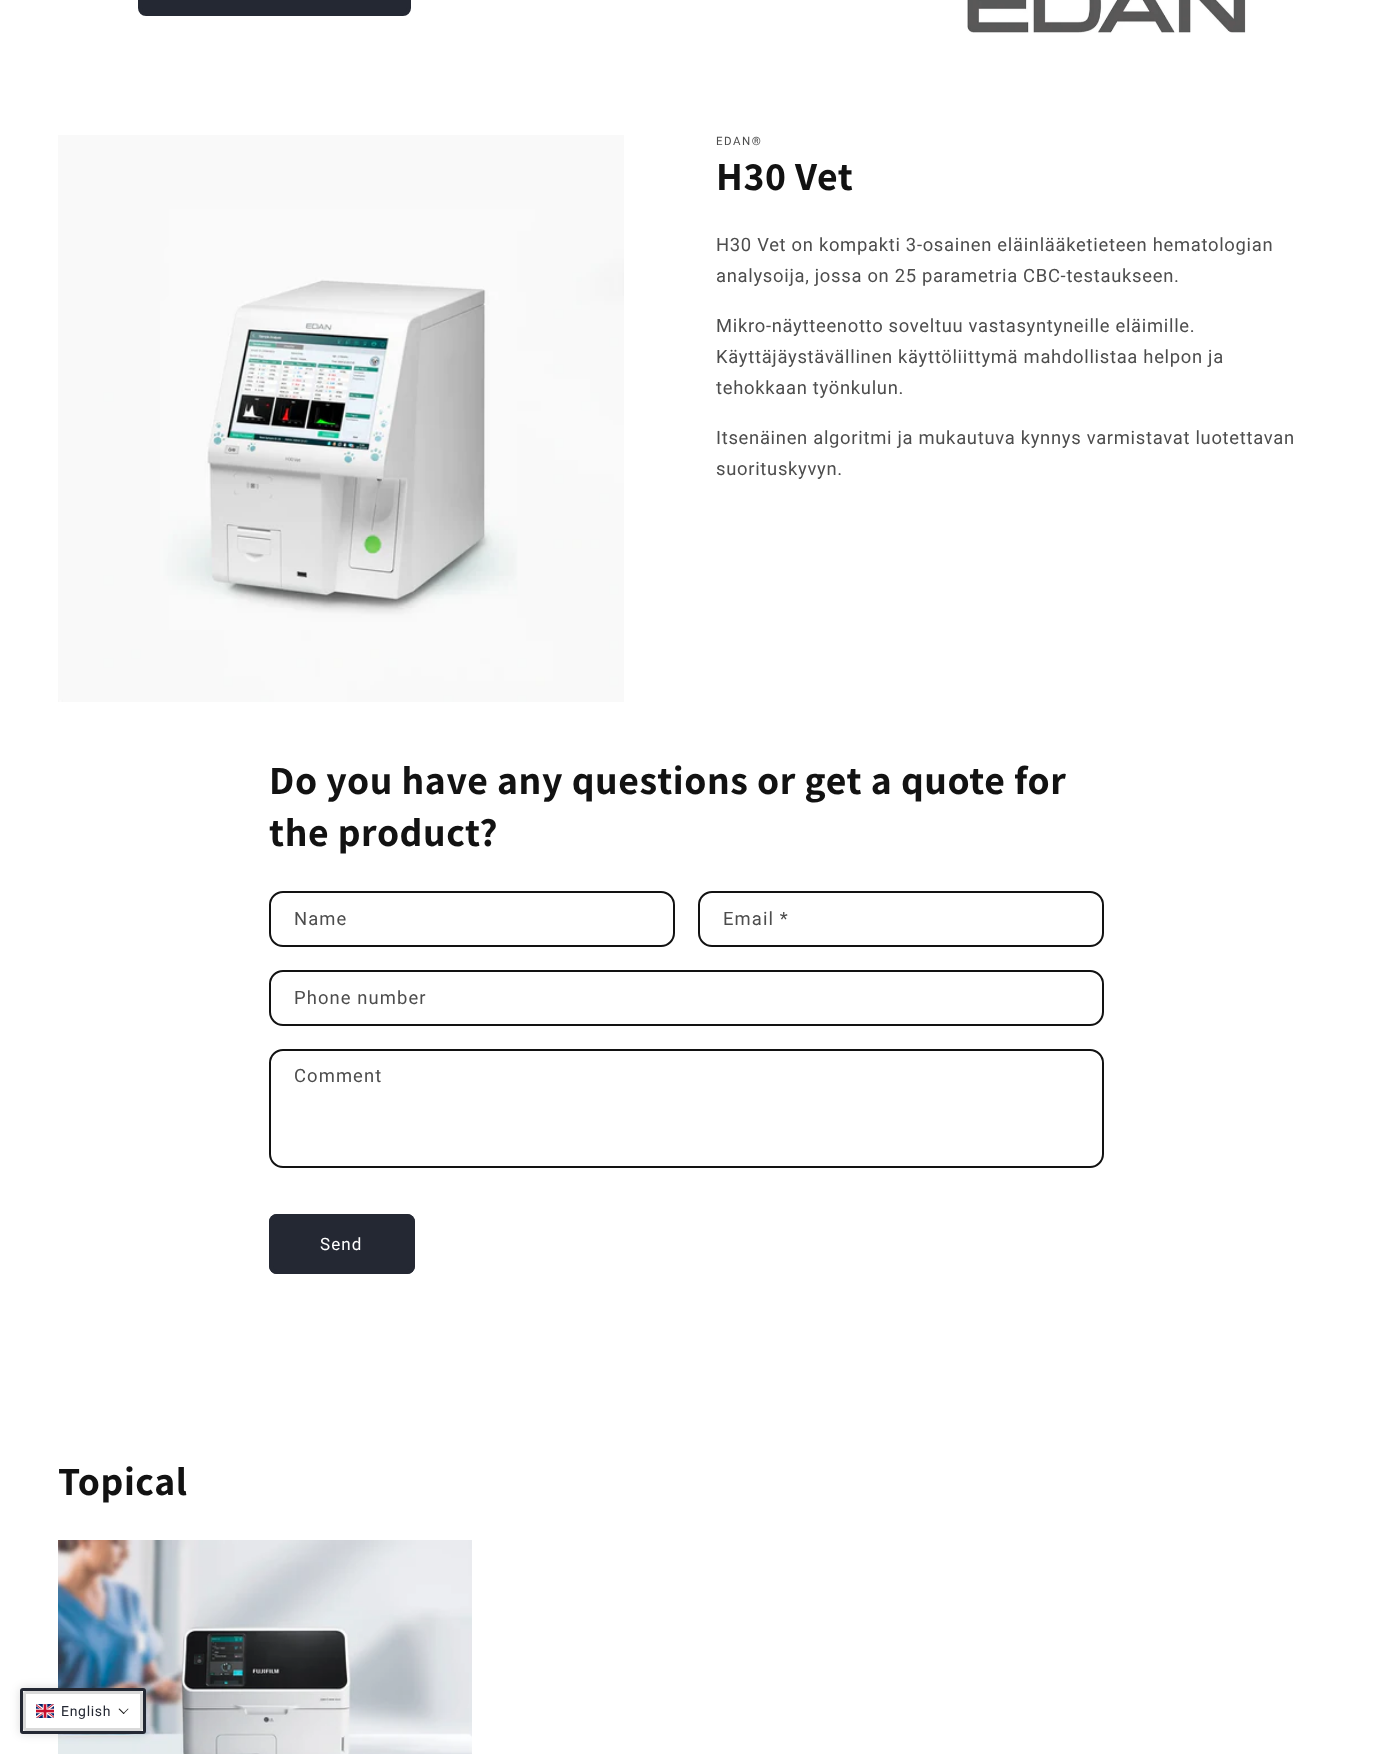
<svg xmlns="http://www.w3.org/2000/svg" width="1373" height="1754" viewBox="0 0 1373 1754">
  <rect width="100%" height="100%" fill="#fff"/>
  <rect x="140" y="-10" width="269" height="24" rx="6" fill="#242833" stroke="#242833" stroke-width="4"/>
  <image x="967" y="0" width="279" height="33" href="img/1.png"/>
  <image x="58" y="135" width="566" height="567" href="img/2.png"/>
  <rect x="270" y="892" width="404" height="54" rx="13" fill="none" stroke="#121212" stroke-width="2"/>
  <rect x="699" y="892" width="404" height="54" rx="13" fill="none" stroke="#121212" stroke-width="2"/>
  <rect x="270" y="971" width="833" height="54" rx="13" fill="none" stroke="#121212" stroke-width="2"/>
  <rect x="270" y="1050" width="833" height="117" rx="13" fill="none" stroke="#121212" stroke-width="2"/>
  <rect x="269" y="1214" width="146" height="60" rx="8" fill="#242833"/>
  <rect x="271" y="1216" width="142" height="56" rx="6" fill="none" stroke="#242833" stroke-width="4"/>
  <image x="58" y="1540" width="414" height="214" href="img/3.png"/>
  <rect x="20" y="1688" width="126" height="46" rx="3" fill="#00000026" filter="blur(5px)"/>
  <rect x="21.5" y="1689.5" width="123" height="43" rx="1.5" fill="#fff" stroke="#242833" stroke-width="3"/>
  <rect x="24.5" y="1692.5" width="117" height="37" rx="1.5" fill="none" stroke="#d9d9d9" stroke-width="3"/>
  <image x="36" y="1704" width="18" height="14" href="img/4.png"/>
  <path d="M128 1708.5L128.5 1709L123.5 1714L123 1713.5Z" fill="#1a1a1a"/>
  <path d="M119.5 1708.5L124.5 1713.5L123.5 1714L118.5 1709Z" fill="#1a1a1a"/>
  <text x="716" y="145" font-family="Roboto" font-size="11.5" letter-spacing="1.5" fill="#4d4d4d">EDAN®</text>
  <text x="716" y="190" font-family="Assistant" font-size="40" font-weight="bold" letter-spacing="0.6" fill="#121212">H30 Vet</text>
  <g font-family="Roboto" font-size="18.4" letter-spacing="0.7" fill="#4d4d4d">
    <text x="716" y="251">H30 Vet on kompakti 3-osainen eläinlääketieteen hematologian</text>
    <text x="716" y="282">analysoija, jossa on 25 parametria CBC-testaukseen.</text>
    <text x="716" y="332">Mikro-näytteenotto soveltuu vastasyntyneille eläimille.</text>
    <text x="716" y="363">Käyttäjäystävällinen käyttöliittymä mahdollistaa helpon ja</text>
    <text x="716" y="394">tehokkaan työnkulun.</text>
    <text x="716" y="444">Itsenäinen algoritmi ja mukautuva kynnys varmistavat luotettavan</text>
    <text x="716" y="475">suorituskyvyn.</text>
  </g>
  <g font-family="Assistant" font-size="40" font-weight="bold" letter-spacing="0.6" fill="#121212">
    <text x="269" y="794">Do you have any questions or get a quote for</text>
    <text x="269" y="846">the product?</text>
  </g>
  <g font-family="Roboto" font-size="18.4" letter-spacing="1.1" fill="#4d4d4d">
    <text x="294" y="925">Name</text>
    <text x="723" y="925">Email *</text>
    <text x="294" y="1004">Phone number</text>
    <text x="294" y="1082">Comment</text>
  </g>
  <text x="320" y="1250" font-family="Roboto" font-size="17" letter-spacing="1.1" fill="#fff">Send</text>
  <text x="58" y="1495" font-family="Assistant" font-size="40" font-weight="bold" letter-spacing="0.6" fill="#121212">Topical</text>
  <text x="61" y="1716" font-family="Roboto" font-size="14" letter-spacing="0.7" fill="#242833">English</text>
</svg>
